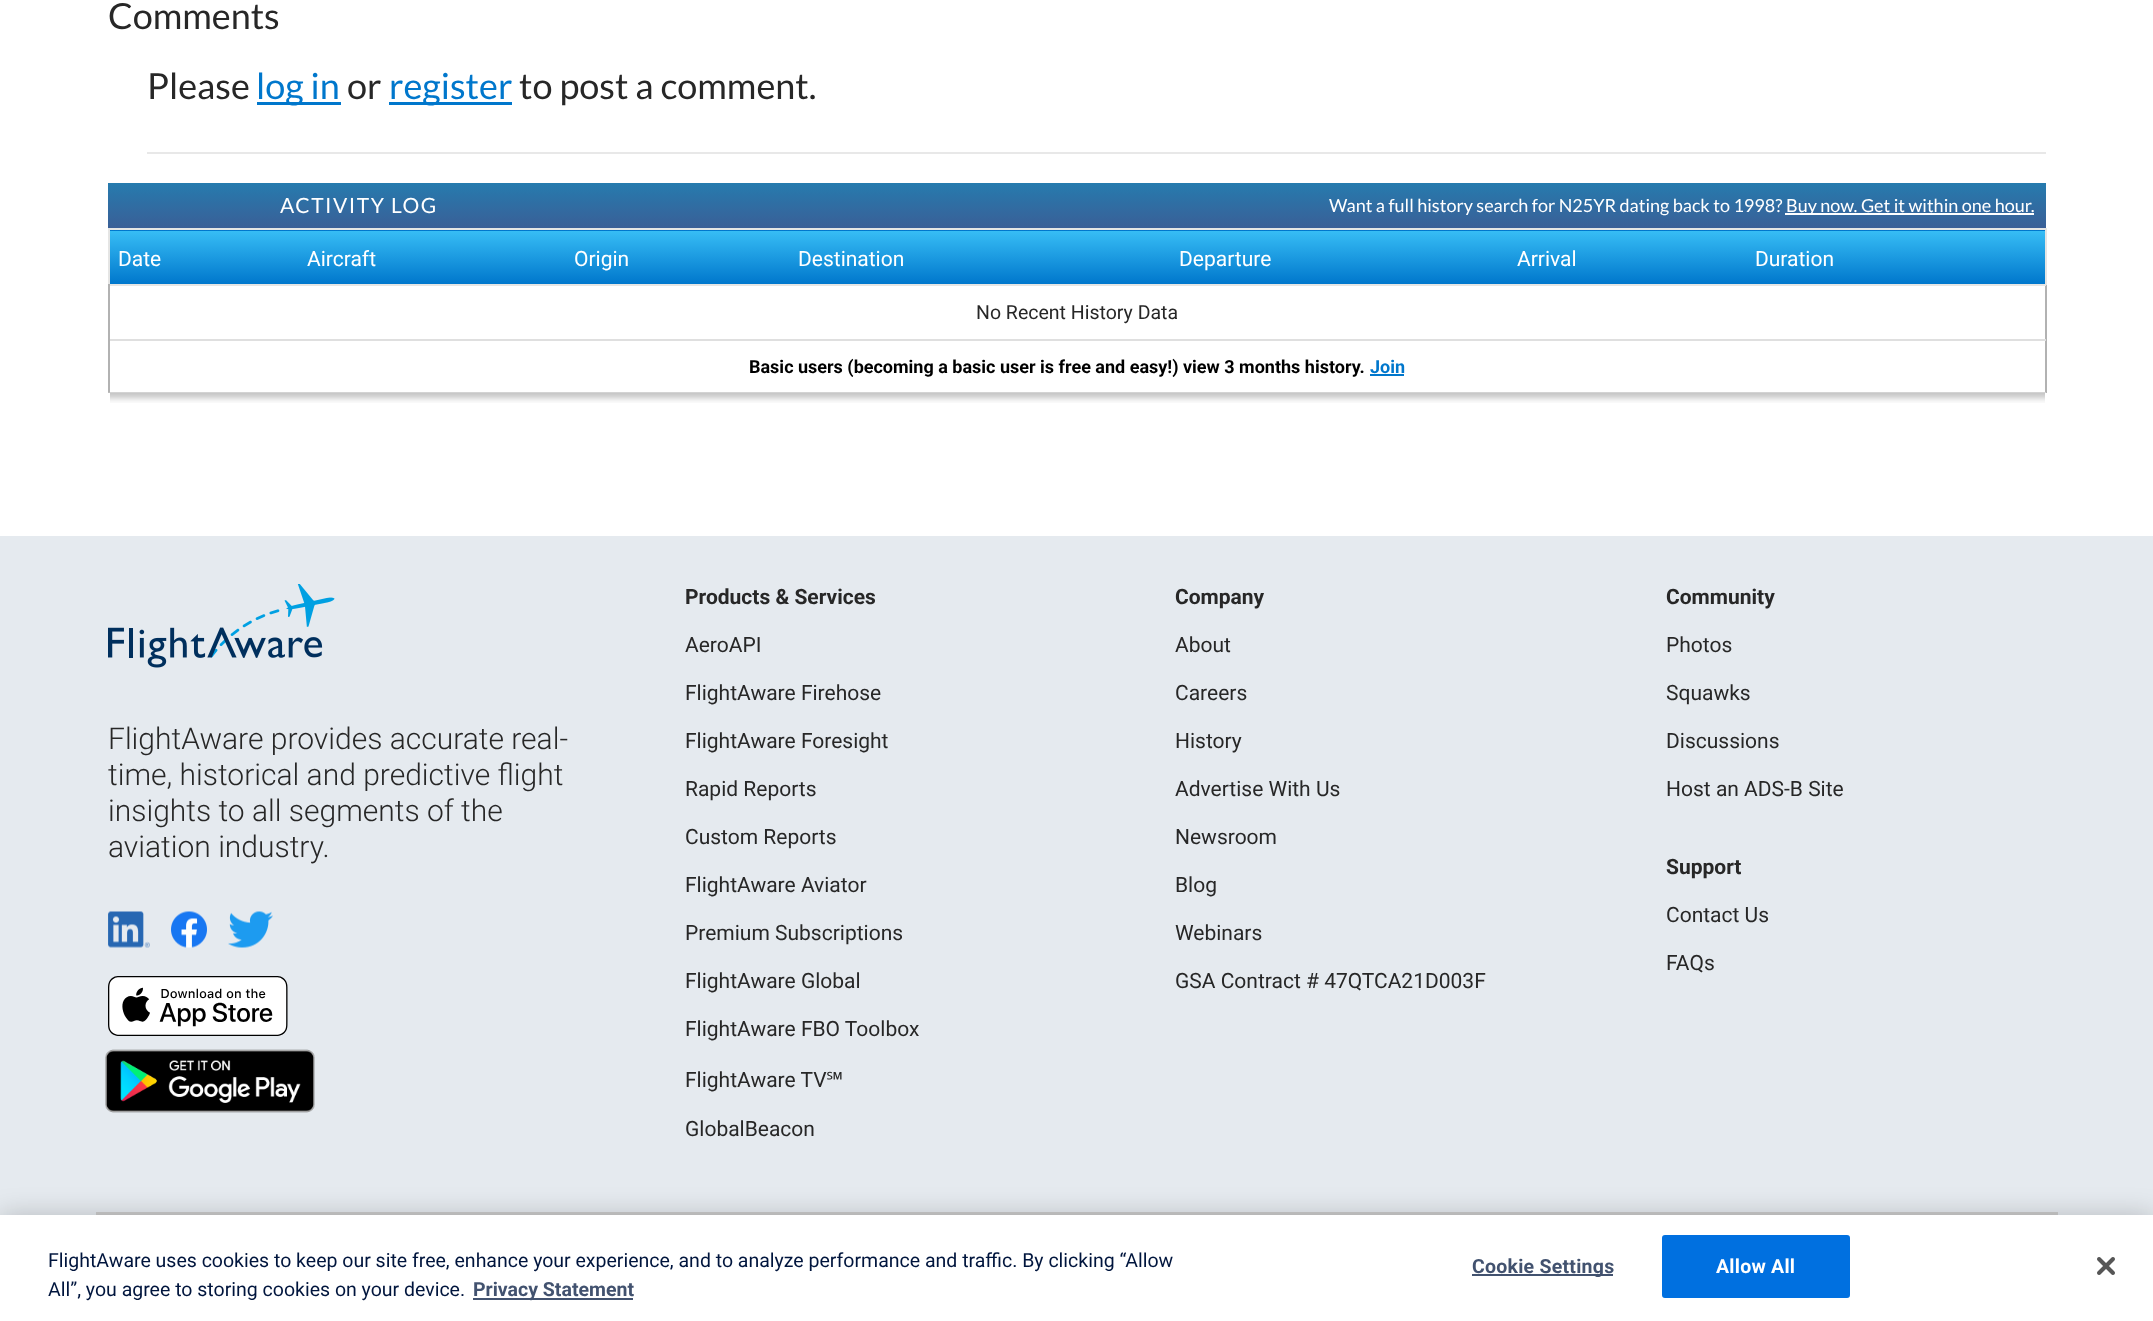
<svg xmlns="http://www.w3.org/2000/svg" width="2153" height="1321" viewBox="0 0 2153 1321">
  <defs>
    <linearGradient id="g1" gradientUnits="userSpaceOnUse" x1="108" y1="183" x2="108" y2="228"><stop offset="0" stop-color="#267bae"/><stop offset="1" stop-color="#3a5f97"/></linearGradient>
    <linearGradient id="g2" gradientUnits="userSpaceOnUse" x1="110" y1="179" x2="110" y2="231"><stop offset="0" stop-color="#37bdf5"/><stop offset="1" stop-color="#07c"/></linearGradient>
    <linearGradient id="g3" gradientUnits="userSpaceOnUse" x1="110" y1="231" x2="110" y2="284"><stop offset="0" stop-color="#37bdf5"/><stop offset="1" stop-color="#07c"/></linearGradient>
  </defs>
  <rect width="100%" height="100%" fill="#fff"/>
  <path d="M147 152h1899v2H147z" fill="#e8e8e8"/>
  <path d="M257 102h84v3H257z" fill="#07c"/>
  <path d="M389 102h123v3H389z" fill="#07c"/>
  <path d="M108 183h1938v45H108z" fill="url(#g1)"/>
  <path d="M1785 213h249v2H1785z" fill="#fff"/>
  <path d="M2045 285h2v108H2045z" fill="#b2b2b2"/>
  <path d="M108 230h1938v1H108z" fill="url(#g2)"/>
  <path d="M110 231h1935v53H110z" fill="url(#g3)"/>
  <path d="M108 228h1938v2H108z" fill="#e5e5e4"/>
  <path d="M2045 228h2v57H2045z" fill="#e5e5e4"/>
  <path d="M108 284h1938v2H108z" fill="#e5e5e4"/>
  <path d="M108 228h2v57H108z" fill="#e5e5e4"/>
  <path d="M108 339h1938v2H108z" fill="#dfdfdf"/>
  <path d="M108 392h1938v1H108z" fill="#dfdfdf"/>
  <path d="M108 284h2v109H108z" fill="#b2b2b2"/>
  <path d="M1370 374h34v2H1370z" fill="#07c"/>
  <image x="108" y="392" width="1938" height="11" href="img/1.png"/>
  <path d="M2045 393h1v10H2045z" fill="#fff"/>
  <path d="M108 393h2v10H108z" fill="#fff"/>
  <path d="M0 536h2153v679H0z" fill="#e5eaef"/>
  <image x="108" y="584" width="227" height="84" href="img/2.png"/>
  <image x="108" y="911" width="42" height="37" href="img/3.png"/>
  <image x="171" y="911" width="36" height="37" href="img/4.png"/>
  <image x="228" y="911" width="45" height="37" href="img/5.png"/>
  <image x="108" y="976" width="180" height="60" href="img/6.png"/>
  <image x="105" y="1049" width="210" height="64" href="img/7.png"/>
  <path d="M96 1212h1962v3H96z" fill="#ccc"/>
  <path d="M0 1215h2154v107H0z" fill="#00000033" filter="blur(13.5px)"/>
  <path d="M0 1215h2153v106H0z" fill="#fff"/>
  <path d="M473 1298h160v2H473z" fill="#42526f"/>
  <path d="M1472 1274h141v2H1472z" fill="#42526f"/>
  <rect x="1663" y="1236" width="186" height="61" rx="2" fill="#0070e0" stroke="#0070e0" stroke-width="2"/>
  <image x="2097" y="1257" width="18" height="18" href="img/8.png"/>
  <g font-family="Lato" font-size="36" fill="#272727">
    <text x="108" y="29">Comments</text>
    <text x="147" y="99">Please</text>
  </g>
  <text x="256" y="99" font-family="Lato" font-size="36" fill="#07c">log in</text>
  <text x="347" y="99" font-family="Lato" font-size="36" fill="#272727">or</text>
  <text x="389" y="99" font-family="Lato" font-size="36" fill="#07c">register</text>
  <text x="519" y="99" font-family="Lato" font-size="36" fill="#272727">to post a comment.</text>
  <text x="280" y="213" font-family="Lato" font-size="21" letter-spacing="1.5" fill="#fff">ACTIVITY LOG</text>
  <g font-family="Lato" font-size="18" fill="#fff">
    <text x="1329" y="212">Want a full history search for N25YR dating back to 1998?</text>
    <text x="1786" y="212">Buy now. Get it within one hour.</text>
  </g>
  <g font-family="Roboto" font-size="21" fill="#fff">
    <text x="118" y="266">Date</text>
    <text x="307" y="266">Aircraft</text>
    <text x="574" y="266">Origin</text>
    <text x="798" y="266">Destination</text>
    <text x="1179" y="266">Departure</text>
    <text x="1517" y="266">Arrival</text>
    <text x="1755" y="266">Duration</text>
  </g>
  <text x="976" y="319" font-family="Roboto" font-size="19.5" fill="#272727">No Recent History Data</text>
  <text x="749" y="373" font-family="Roboto" font-size="18" font-weight="bold" fill="#000">Basic users (becoming a basic user is free and easy!) view 3 months history.</text>
  <text x="1370" y="373" font-family="Roboto" font-size="18" font-weight="bold" fill="#07c">Join</text>
  <g font-family="Roboto" font-size="30" font-weight="300" fill="#272727">
    <text x="108" y="749">FlightAware provides accurate real-</text>
    <text x="108" y="785">time, historical and predictive flight</text>
    <text x="108" y="821">insights to all segments of the</text>
    <text x="108" y="857">aviation industry.</text>
  </g>
  <text x="685" y="604" font-family="Roboto" font-size="21" font-weight="bold" fill="#272727">Products &amp; Services</text>
  <g font-family="Roboto" font-size="21" fill="#272727">
    <text x="685" y="652">AeroAPI</text>
    <text x="685" y="700">FlightAware Firehose</text>
    <text x="685" y="748">FlightAware Foresight</text>
    <text x="685" y="796">Rapid Reports</text>
    <text x="685" y="844">Custom Reports</text>
    <text x="685" y="892">FlightAware Aviator</text>
    <text x="685" y="940">Premium Subscriptions</text>
    <text x="685" y="988">FlightAware Global</text>
    <text x="685" y="1036">FlightAware FBO Toolbox</text>
    <text x="685" y="1087">FlightAware TV</text>
  </g>
  <text x="826" y="1087" font-family="Noto Sans" font-size="21" fill="#272727">℠</text>
  <text x="685" y="1136" font-family="Roboto" font-size="21" fill="#272727">GlobalBeacon</text>
  <text x="1175" y="604" font-family="Roboto" font-size="21" font-weight="bold" fill="#272727">Company</text>
  <g font-family="Roboto" font-size="21" fill="#272727">
    <text x="1175" y="652">About</text>
    <text x="1175" y="700">Careers</text>
    <text x="1175" y="748">History</text>
    <text x="1175" y="796">Advertise With Us</text>
    <text x="1175" y="844">Newsroom</text>
    <text x="1175" y="892">Blog</text>
    <text x="1175" y="940">Webinars</text>
    <text x="1175" y="988">GSA Contract # 47QTCA21D003F</text>
  </g>
  <text x="1666" y="604" font-family="Roboto" font-size="21" font-weight="bold" fill="#272727">Community</text>
  <g font-family="Roboto" font-size="21" fill="#272727">
    <text x="1666" y="652">Photos</text>
    <text x="1666" y="700">Squawks</text>
    <text x="1666" y="748">Discussions</text>
    <text x="1666" y="796">Host an ADS-B Site</text>
  </g>
  <text x="1666" y="874" font-family="Roboto" font-size="21" font-weight="bold" fill="#272727">Support</text>
  <g font-family="Roboto" font-size="21" fill="#272727">
    <text x="1666" y="922">Contact Us</text>
    <text x="1666" y="970">FAQs</text>
  </g>
  <g font-family="Roboto" font-size="19.5" fill="#00153d">
    <text x="48" y="1267">FlightAware uses cookies to keep our site free, enhance your experience, and to analyze performance and traffic. By clicking “Allow</text>
    <text x="48" y="1296">All”, you agree to storing cookies on your device.</text>
  </g>
  <text x="473" y="1296" font-family="Roboto" font-size="19.5" font-weight="bold" fill="#42526f">Privacy Statement</text>
  <text x="1472" y="1273" font-family="Roboto" font-size="19.5" font-weight="bold" letter-spacing="0.25" fill="#42526f">Cookie Settings</text>
  <text x="1716" y="1273" font-family="Roboto" font-size="19.5" font-weight="bold" letter-spacing="0.25" fill="#fff">Allow All</text>
</svg>
